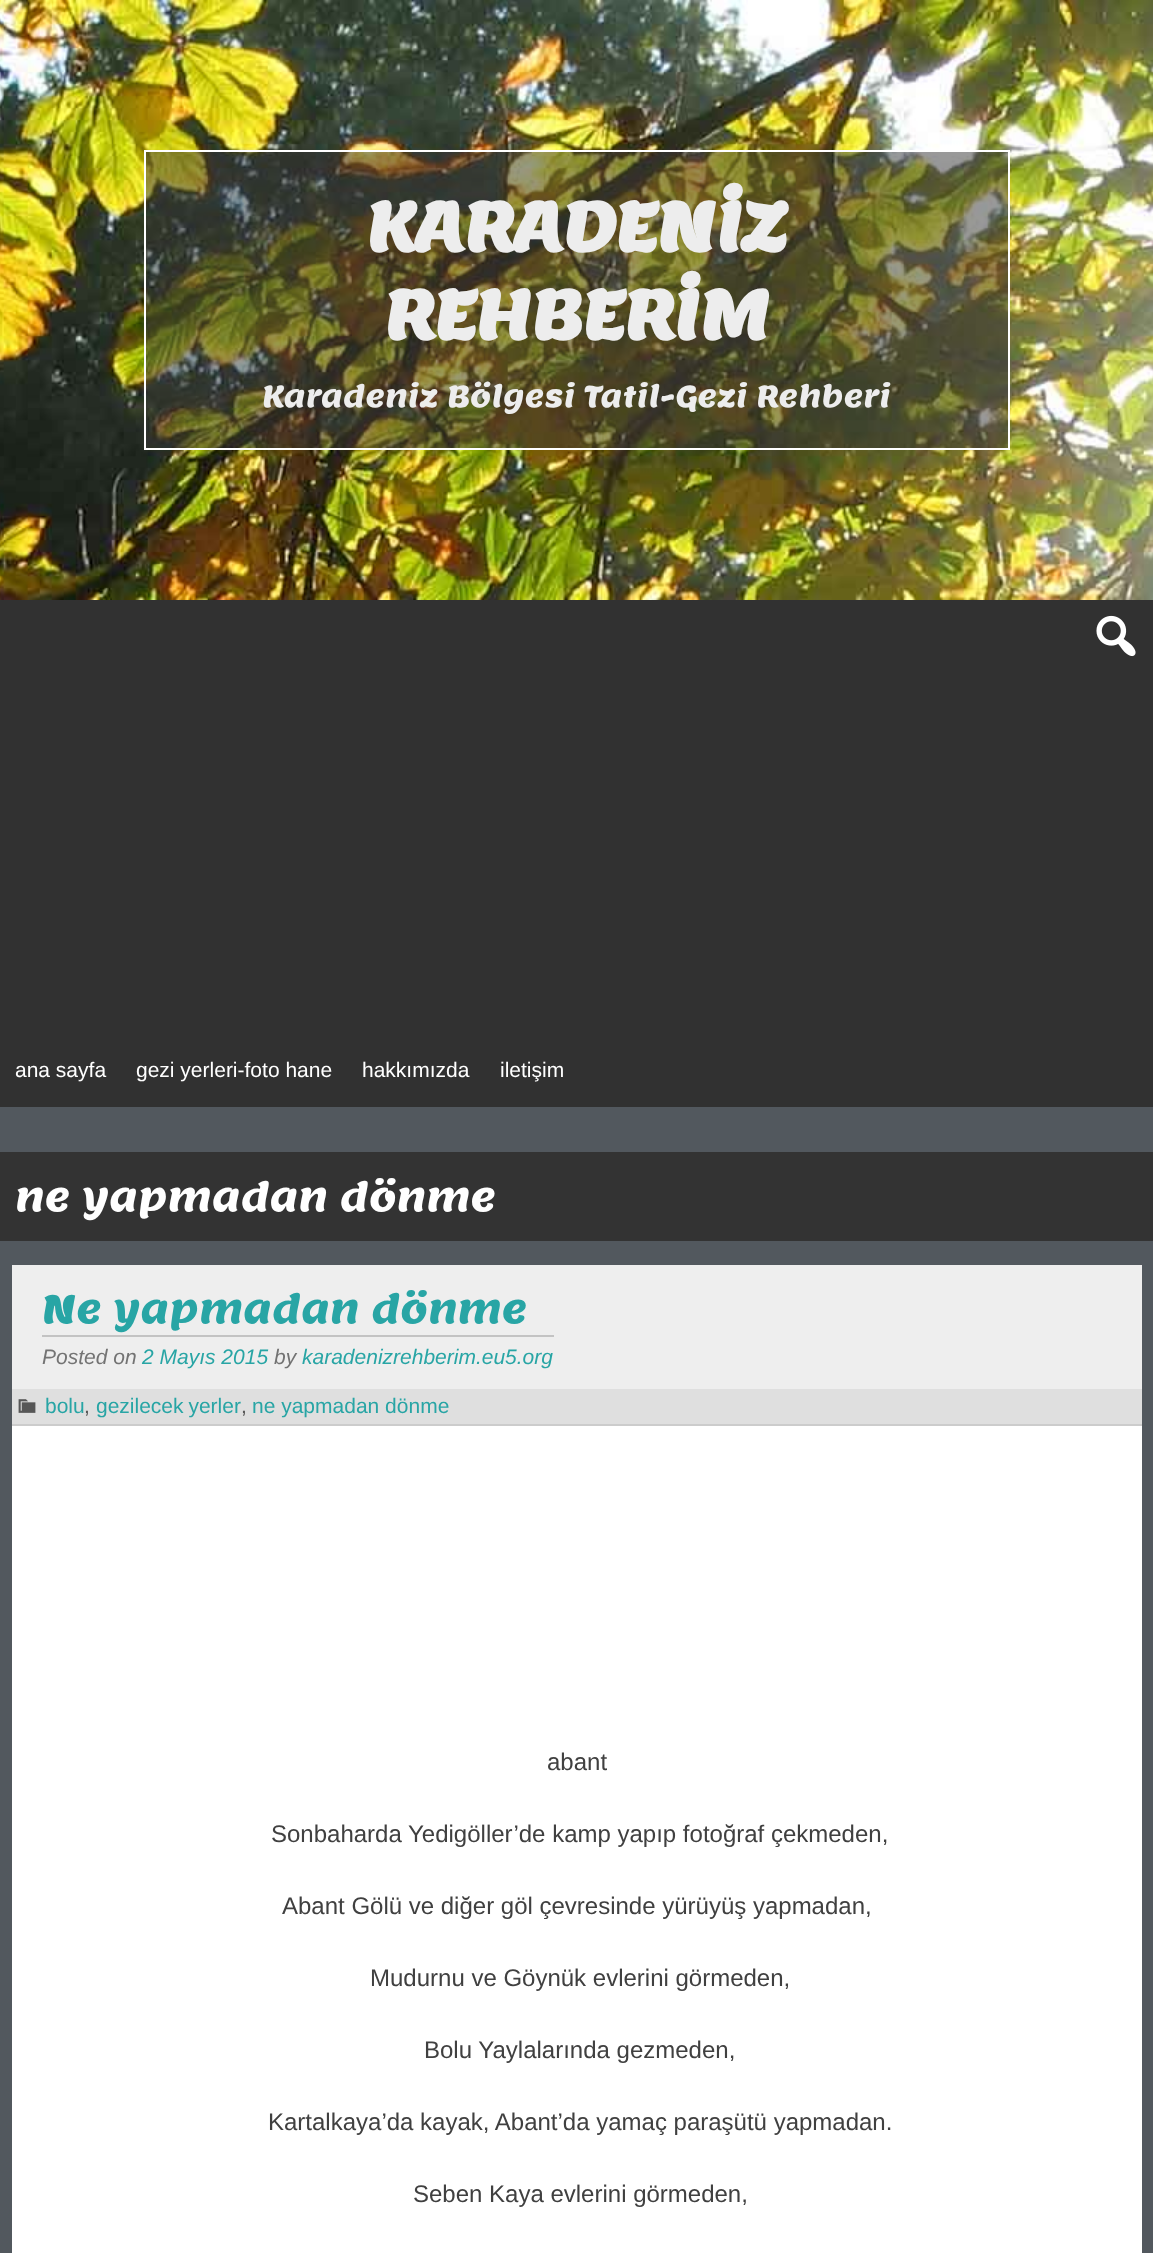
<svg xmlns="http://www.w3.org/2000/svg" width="1153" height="2253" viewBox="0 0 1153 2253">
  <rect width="100%" height="100%" fill="#52585e"/>
  <image x="0" y="0" width="1153" height="600" href="img/1.png"/>
  <path d="M145 151h864v298H145z" fill="#33333380" stroke="#fff" stroke-width="2"/>
  <path d="M0 600h1153v507H0z" fill="#313131"/>
  <image x="1096" y="615" width="40" height="42" href="img/2.png"/>
  <path d="M0 1152h1153v89H0z" fill="#333"/>
  <path d="M12 1265h1130v124H12z" fill="#eee"/>
  <path d="M42 1335h512v2H42z" fill="#c3c3c3"/>
  <path d="M12 1389h1130v35H12z" fill="#dfdfdf"/>
  <path d="M12 1424h1130v2H12z" fill="#ccc"/>
  <image x="18" y="1399" width="18" height="14" href="img/3.png"/>
  <path d="M12 1426h1130v827H12z" fill="#fff"/>
  <g font-family="Lemon" font-size="67.5" font-weight="bold" fill="#ededed">
    <text x="366" y="251">KARADENİZ</text>
    <text x="384" y="339">REHBERİM</text>
  </g>
  <text x="262" y="407" font-family="Lemon" font-size="30" fill="#ededed">Karadeniz Bölgesi Tatil-Gezi Rehberi</text>
  <g font-family="Liberation Sans" font-size="21" fill="#fff">
    <text x="15" y="1077">ana sayfa</text>
    <text x="136" y="1077">gezi yerleri-foto hane</text>
    <text x="362" y="1077">hakkımızda</text>
    <text x="500" y="1077">iletişim</text>
  </g>
  <text x="15" y="1211" font-family="Lemon" font-size="39" fill="#fff">ne yapmadan dönme</text>
  <text x="42" y="1323" font-family="Lemon" font-size="39" fill="#28a5a5">Ne yapmadan dönme</text>
  <text x="42" y="1364" font-family="Liberation Sans" font-size="21" font-style="italic" fill="#737373">Posted on</text>
  <text x="142" y="1364" font-family="Liberation Sans" font-size="21" font-style="italic" fill="#28a5a5">2 Mayıs 2015</text>
  <text x="274" y="1364" font-family="Liberation Sans" font-size="21" font-style="italic" fill="#737373">by</text>
  <text x="302" y="1364" font-family="Liberation Sans" font-size="21" font-style="italic" fill="#28a5a5">karadenizrehberim.eu5.org</text>
  <text x="45" y="1413" font-family="Liberation Sans" font-size="21" fill="#28a5a5">bolu</text>
  <text x="84" y="1413" font-family="Liberation Sans" font-size="21" fill="#565656">,</text>
  <text x="96" y="1413" word-spacing="-1" font-family="Liberation Sans" font-size="21" fill="#28a5a5">gezilecek yerler</text>
  <text x="241" y="1413" font-family="Liberation Sans" font-size="21" fill="#565656">,</text>
  <text x="252" y="1413" font-family="Liberation Sans" font-size="21" fill="#28a5a5">ne yapmadan dönme</text>
  <g font-family="Liberation Sans" font-size="24" fill="#404040">
    <text x="547" y="1770">abant</text>
    <text x="271" y="1842">Sonbaharda Yedigöller’de kamp yapıp fotoğraf çekmeden,</text>
    <text x="282" y="1914">Abant Gölü ve diğer göl çevresinde yürüyüş yapmadan,</text>
    <text x="370" y="1986">Mudurnu ve Göynük evlerini görmeden,</text>
    <text x="424" y="2058">Bolu Yaylalarında gezmeden,</text>
    <text x="268" y="2130">Kartalkaya’da kayak, Abant’da yamaç paraşütü yapmadan.</text>
    <text x="413" y="2202">Seben Kaya evlerini görmeden,</text>
  </g>
</svg>
